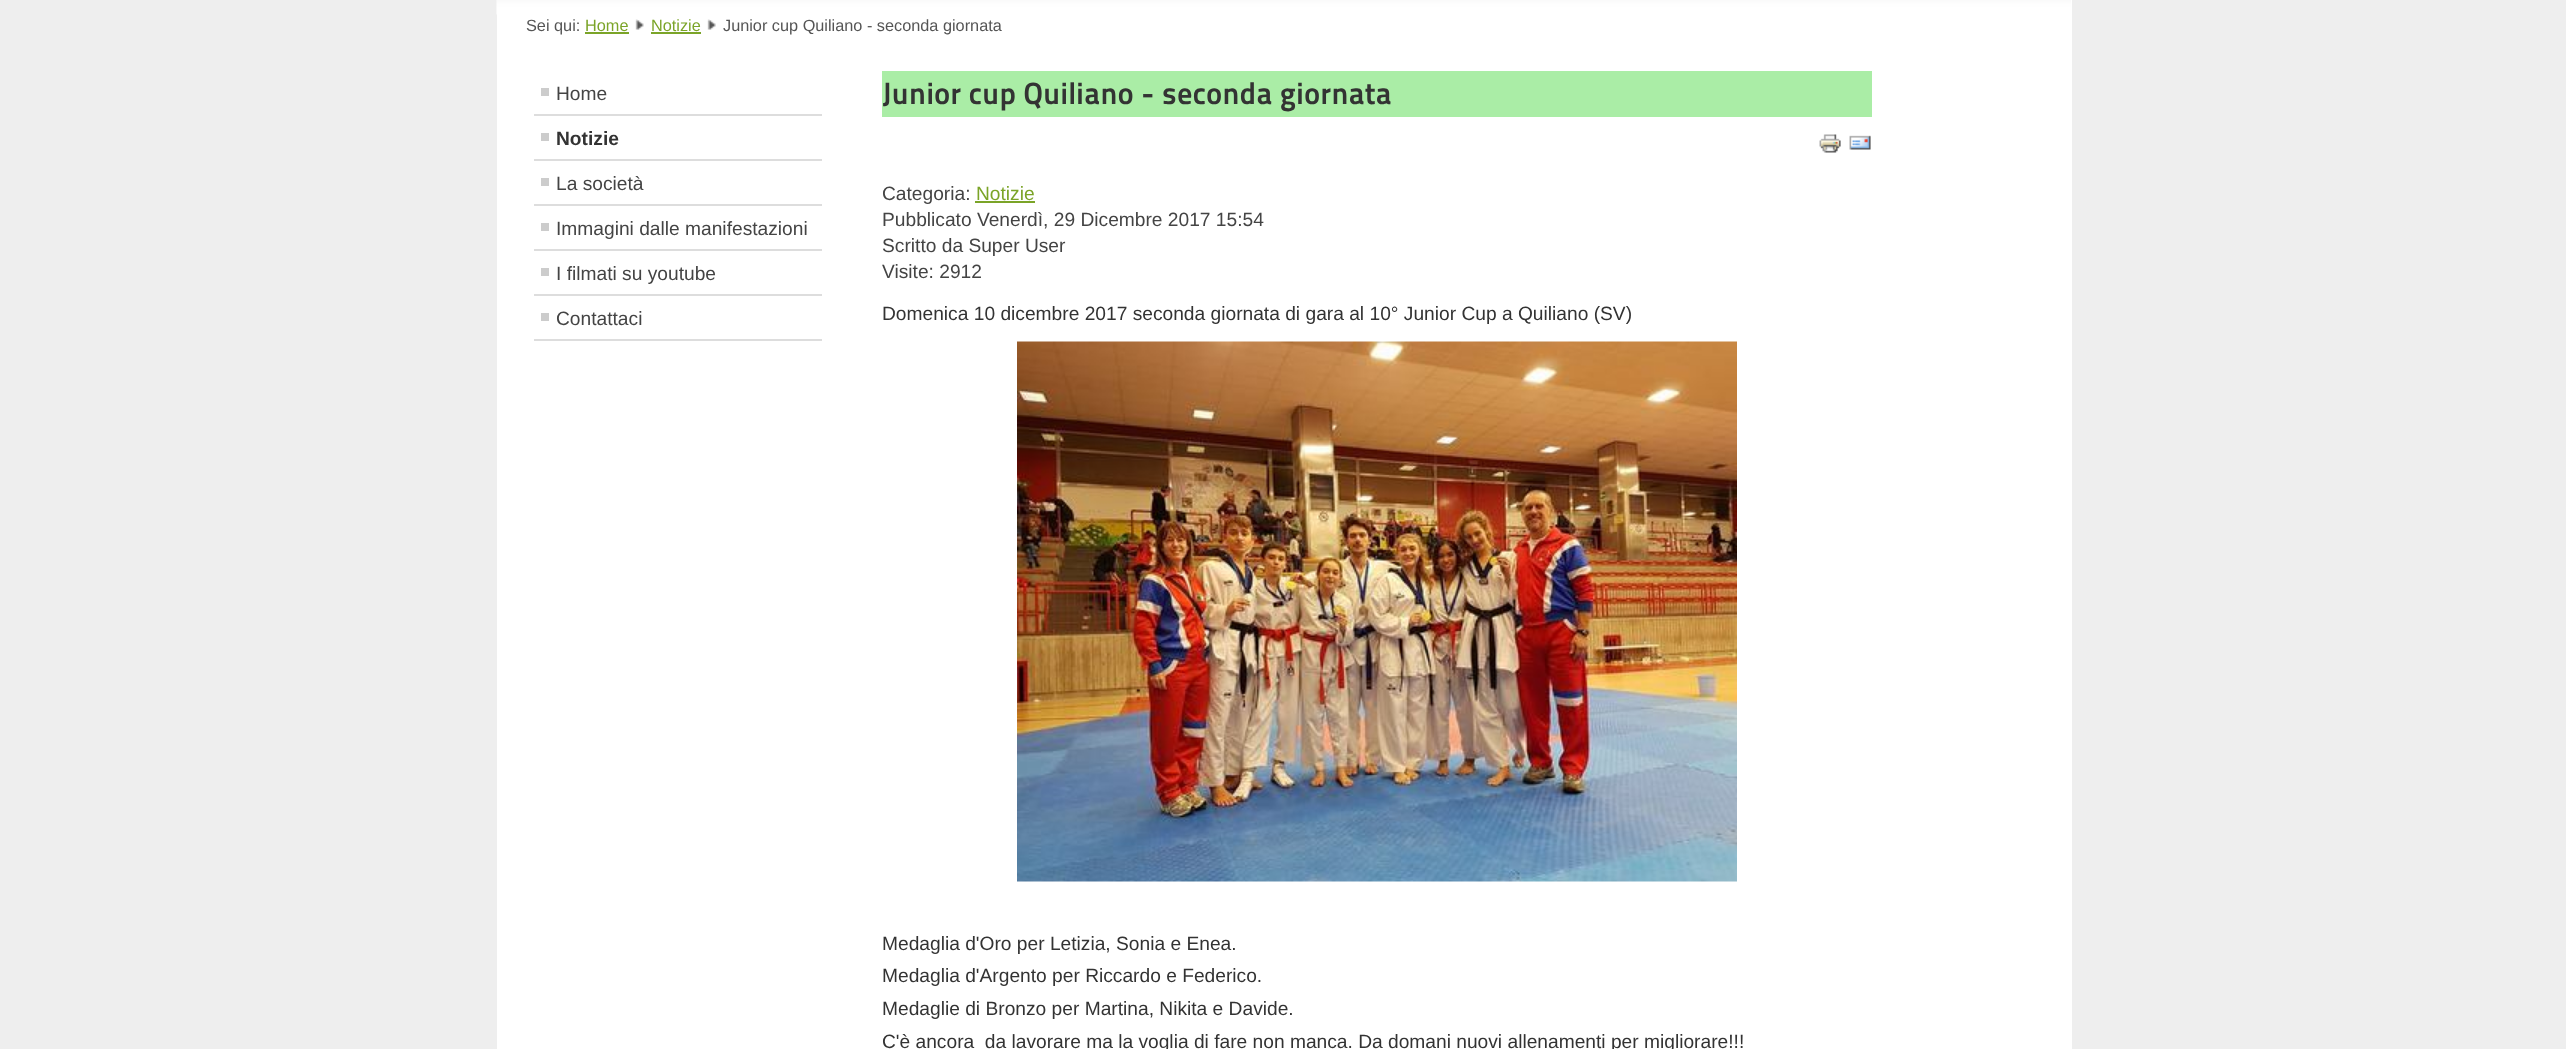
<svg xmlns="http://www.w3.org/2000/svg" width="2566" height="1049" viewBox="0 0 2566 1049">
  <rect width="100%" height="100%" fill="#eee"/>
  <path d="M497 0h1575v1049H497z" fill="#fff"/>
  <image x="496" y="0" width="1575" height="15" href="img/1.png"/>
  <path d="M585 32h44v2H585z" fill="#7ba428"/>
  <image x="635" y="19" width="9" height="11" href="img/2.png"/>
  <path d="M651 32h50v2H651z" fill="#7ba428"/>
  <image x="707" y="19" width="9" height="11" href="img/3.png"/>
  <path d="M534 114h288v2H534z" fill="#ddd"/>
  <path d="M541 88h8v8H541z" fill="#ccc"/>
  <path d="M534 159h288v2H534z" fill="#ddd"/>
  <path d="M541 133h8v8H541z" fill="#ccc"/>
  <path d="M534 204h288v2H534z" fill="#ddd"/>
  <path d="M541 178h8v8H541z" fill="#ccc"/>
  <path d="M534 249h288v2H534z" fill="#ddd"/>
  <path d="M541 223h8v8H541z" fill="#ccc"/>
  <path d="M534 294h288v2H534z" fill="#ddd"/>
  <path d="M541 268h8v8H541z" fill="#ccc"/>
  <path d="M534 339h288v2H534z" fill="#ddd"/>
  <path d="M541 313h8v8H541z" fill="#ccc"/>
  <path d="M882 71h990v46H882z" fill="#aaeda6"/>
  <image x="1819" y="134" width="22" height="19" href="img/4.png"/>
  <image x="1849" y="135" width="22" height="15" href="img/5.png"/>
  <path d="M975 201h60v2H975z" fill="#7ba428"/>
  <image x="1017" y="341" width="720" height="541" href="img/6.png"/>
  <text x="526" y="31" font-family="Liberation Sans" font-size="16.3" fill="#555">Sei qui:</text>
  <g font-family="Liberation Sans" font-size="16.3" fill="#7ba428">
    <text x="585" y="31">Home</text>
    <text x="651" y="31">Notizie</text>
  </g>
  <text x="723" y="31" font-family="Liberation Sans" font-size="16.3" fill="#555">Junior cup Quiliano - seconda giornata</text>
  <text x="556" y="100" font-family="Liberation Sans" font-size="19.2" fill="#444">Home</text>
  <text x="556" y="145" font-family="Liberation Sans" font-size="19.2" font-weight="bold" fill="#333">Notizie</text>
  <g font-family="Liberation Sans" font-size="19.2" fill="#444">
    <text x="556" y="190">La società</text>
    <text x="556" y="235">Immagini dalle manifestazioni</text>
    <text x="556" y="280">I filmati su youtube</text>
    <text x="556" y="325">Contattaci</text>
  </g>
  <text x="882" y="104" font-family="'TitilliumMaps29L'" font-size="30.75" font-weight="800" fill="#333">Junior cup Quiliano - seconda giornata</text>
  <text x="882" y="200" font-family="Liberation Sans" font-size="19.2" fill="#444">Categoria:</text>
  <text x="976" y="200" font-family="Liberation Sans" font-size="19.2" fill="#7ba428">Notizie</text>
  <g font-family="Liberation Sans" font-size="19.2" fill="#444">
    <text x="882" y="226">Pubblicato Venerdì, 29 Dicembre 2017 15:54</text>
    <text x="882" y="252">Scritto da Super User</text>
    <text x="882" y="278">Visite: 2912</text>
  </g>
  <g font-family="Liberation Sans" font-size="19.2" fill="#333">
    <text x="882" y="320">Domenica 10 dicembre 2017 seconda giornata di gara al 10° Junior Cup a Quiliano (SV)</text>
    <text x="882" y="950">Medaglia d'Oro per Letizia, Sonia e Enea.</text>
    <text x="882" y="982">Medaglia d'Argento per Riccardo e Federico.</text>
    <text x="882" y="1015">Medaglie di Bronzo per Martina, Nikita e Davide.</text>
    <text x="882" y="1048" xml:space="preserve">C'è ancora  da lavorare ma la voglia di fare non manca. Da domani nuovi allenamenti per migliorare!!!</text>
  </g>
</svg>
